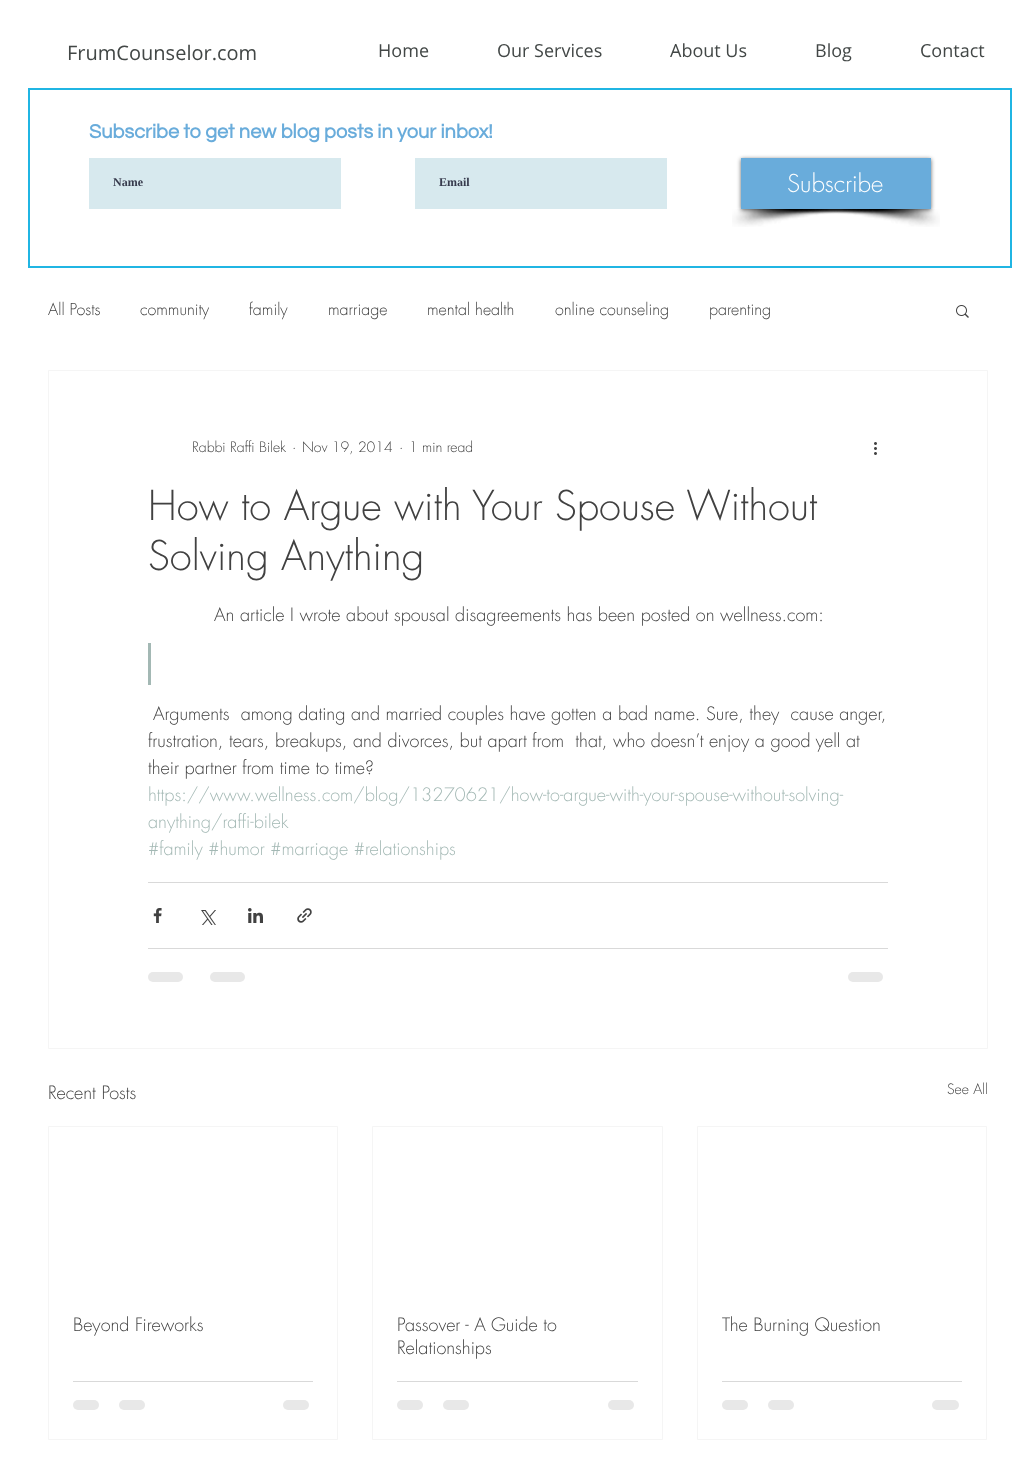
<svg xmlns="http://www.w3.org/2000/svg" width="1035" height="1467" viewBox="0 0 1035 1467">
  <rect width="100%" height="100%" fill="#fff"/>
  <path d="M29 89h982v178H29z" fill="none" stroke="#20b5e3" stroke-width="2"/>
  <path d="M89 158h252v51H89z" fill="#d7e9ee"/>
  <path d="M415 158h252v51H415z" fill="#d7e9ee"/>
  <image x="732" y="209" width="154" height="18" href="img/1.png"/>
  <image x="812" y="209" width="128" height="18" href="img/2.png"/>
  <path d="M741 159h190v51H741z" fill="#00000099" filter="blur(2px)"/>
  <path d="M741 158h190v51H741z" fill="#69acdb"/>
  <image x="956" y="305" width="13" height="13" href="img/3.png"/>
  <path d="M48.5 370.5h939v678H48.5z" fill="none" stroke="#f5f5f5"/>
  <image x="874" y="442" width="3" height="13" href="img/4.png"/>
  <path d="M148 643h3v42H148z" fill="#a3b8b4"/>
  <path d="M148 882h740v1H148z" fill="#d9d9d9"/>
  <image x="153" y="908" width="9" height="15" href="img/5.png"/>
  <image x="201" y="910" width="15" height="15" href="img/6.png"/>
  <image x="248" y="908" width="15" height="15" href="img/7.png"/>
  <image x="297" y="908" width="15" height="15" href="img/8.png"/>
  <path d="M148 948h740v1H148z" fill="#d9d9d9"/>
  <rect x="148" y="972" width="35" height="10" rx="5" fill="#e8e8e8"/>
  <rect x="210" y="972" width="35" height="10" rx="5" fill="#e8e8e8"/>
  <rect x="848" y="972" width="35" height="10" rx="5" fill="#e8e8e8"/>
  <path d="M48.5 1126.5h289v313H48.5z" fill="none" stroke="#f5f5f5"/>
  <path d="M73 1381h240v1H73z" fill="#d9d9d9"/>
  <rect x="73" y="1400" width="26" height="10" rx="5" fill="#e8e8e8"/>
  <rect x="119" y="1400" width="26" height="10" rx="5" fill="#e8e8e8"/>
  <rect x="283" y="1400" width="26" height="10" rx="5" fill="#e8e8e8"/>
  <path d="M372.5 1126.5h290v313H372.5z" fill="none" stroke="#f5f5f5"/>
  <path d="M397 1381h241v1H397z" fill="#d9d9d9"/>
  <rect x="397" y="1400" width="26" height="10" rx="5" fill="#e8e8e8"/>
  <rect x="443" y="1400" width="26" height="10" rx="5" fill="#e8e8e8"/>
  <rect x="608" y="1400" width="26" height="10" rx="5" fill="#e8e8e8"/>
  <path d="M697.5 1126.5h289v313H697.5z" fill="none" stroke="#f5f5f5"/>
  <path d="M722 1381h240v1H722z" fill="#d9d9d9"/>
  <rect x="722" y="1400" width="26" height="10" rx="5" fill="#e8e8e8"/>
  <rect x="768" y="1400" width="26" height="10" rx="5" fill="#e8e8e8"/>
  <rect x="932" y="1400" width="27" height="10" rx="5" fill="#e8e8e8"/>
  <text x="67" y="60" font-family="Open Sans" font-size="20" fill="#424746">FrumCounselor.com</text>
  <g font-family="Open Sans" font-size="18" fill="#424746">
    <text x="378" y="57">Home</text>
    <text x="497" y="57">Our Services</text>
    <text x="670" y="57">About Us</text>
    <text x="815" y="57">Blog</text>
    <text x="920" y="57">Contact</text>
  </g>
  <text x="89" y="138" font-family="Questrial" font-size="20" font-weight="bold" fill="#69acdb">Subscribe to get new blog posts in your inbox!</text>
  <g font-family="Liberation Serif" font-size="12" font-weight="bold" fill="#373b4d">
    <text x="113" y="186">Name</text>
    <text x="439" y="186">Email</text>
  </g>
  <text x="787" y="192" font-family="futura" font-size="24" font-weight="300" fill="#fff">Subscribe</text>
  <g font-family="futura" font-size="16" font-weight="300" fill="#414141">
    <text x="48" y="315">All Posts</text>
    <text x="140" y="315">community</text>
    <text x="249" y="315">family</text>
    <text x="328" y="315">marriage</text>
    <text x="427" y="315">mental health</text>
    <text x="555" y="315">online counseling</text>
    <text x="709" y="315">parenting</text>
  </g>
  <g font-family="futura" font-size="14" font-weight="300" fill="#414141">
    <text x="192" y="452">Rabbi Raffi Bilek</text>
    <text x="292" y="452">·</text>
    <text x="302" y="452">Nov 19, 2014</text>
    <text x="399" y="452">·</text>
    <text x="409" y="452">1 min read</text>
  </g>
  <g font-family="futura" font-size="40" font-weight="300" fill="#414141">
    <text x="148" y="520">How to Argue with Your Spouse Without</text>
    <text x="148" y="570">Solving Anything</text>
  </g>
  <g font-family="futura" font-size="18" font-weight="300" fill="#414141">
    <text x="214" y="621">An article I wrote about spousal disagreements has been posted on wellness.com:</text>
    <text x="153" y="720" xml:space="preserve">Arguments  among dating and married couples have gotten a bad name. Sure, they  cause anger,</text>
    <text x="148" y="747" xml:space="preserve">frustration, tears, breakups, and divorces, but apart from  that, who doesn’t enjoy a good yell at</text>
    <text x="148" y="774">their partner from time to time?</text>
  </g>
  <g font-family="futura" font-size="18" font-weight="300" fill="#a3b8b4">
    <text x="148" y="801">https://www.wellness.com/blog/13270621/how-to-argue-with-your-spouse-without-solving-</text>
    <text x="148" y="828">anything/raffi-bilek</text>
    <text x="148" y="855">#family #humor #marriage #relationships</text>
  </g>
  <text x="48" y="1099" font-family="futura" font-size="18" font-weight="300" fill="#414141">Recent Posts</text>
  <text x="947" y="1094" font-family="futura" font-size="14" font-weight="300" fill="#414141">See All</text>
  <g font-family="futura" font-size="18" font-weight="300" fill="#414141">
    <text x="73" y="1331">Beyond Fireworks</text>
    <text x="397" y="1331">Passover - A Guide to</text>
    <text x="397" y="1354">Relationships</text>
    <text x="722" y="1331">The Burning Question</text>
  </g>
</svg>
